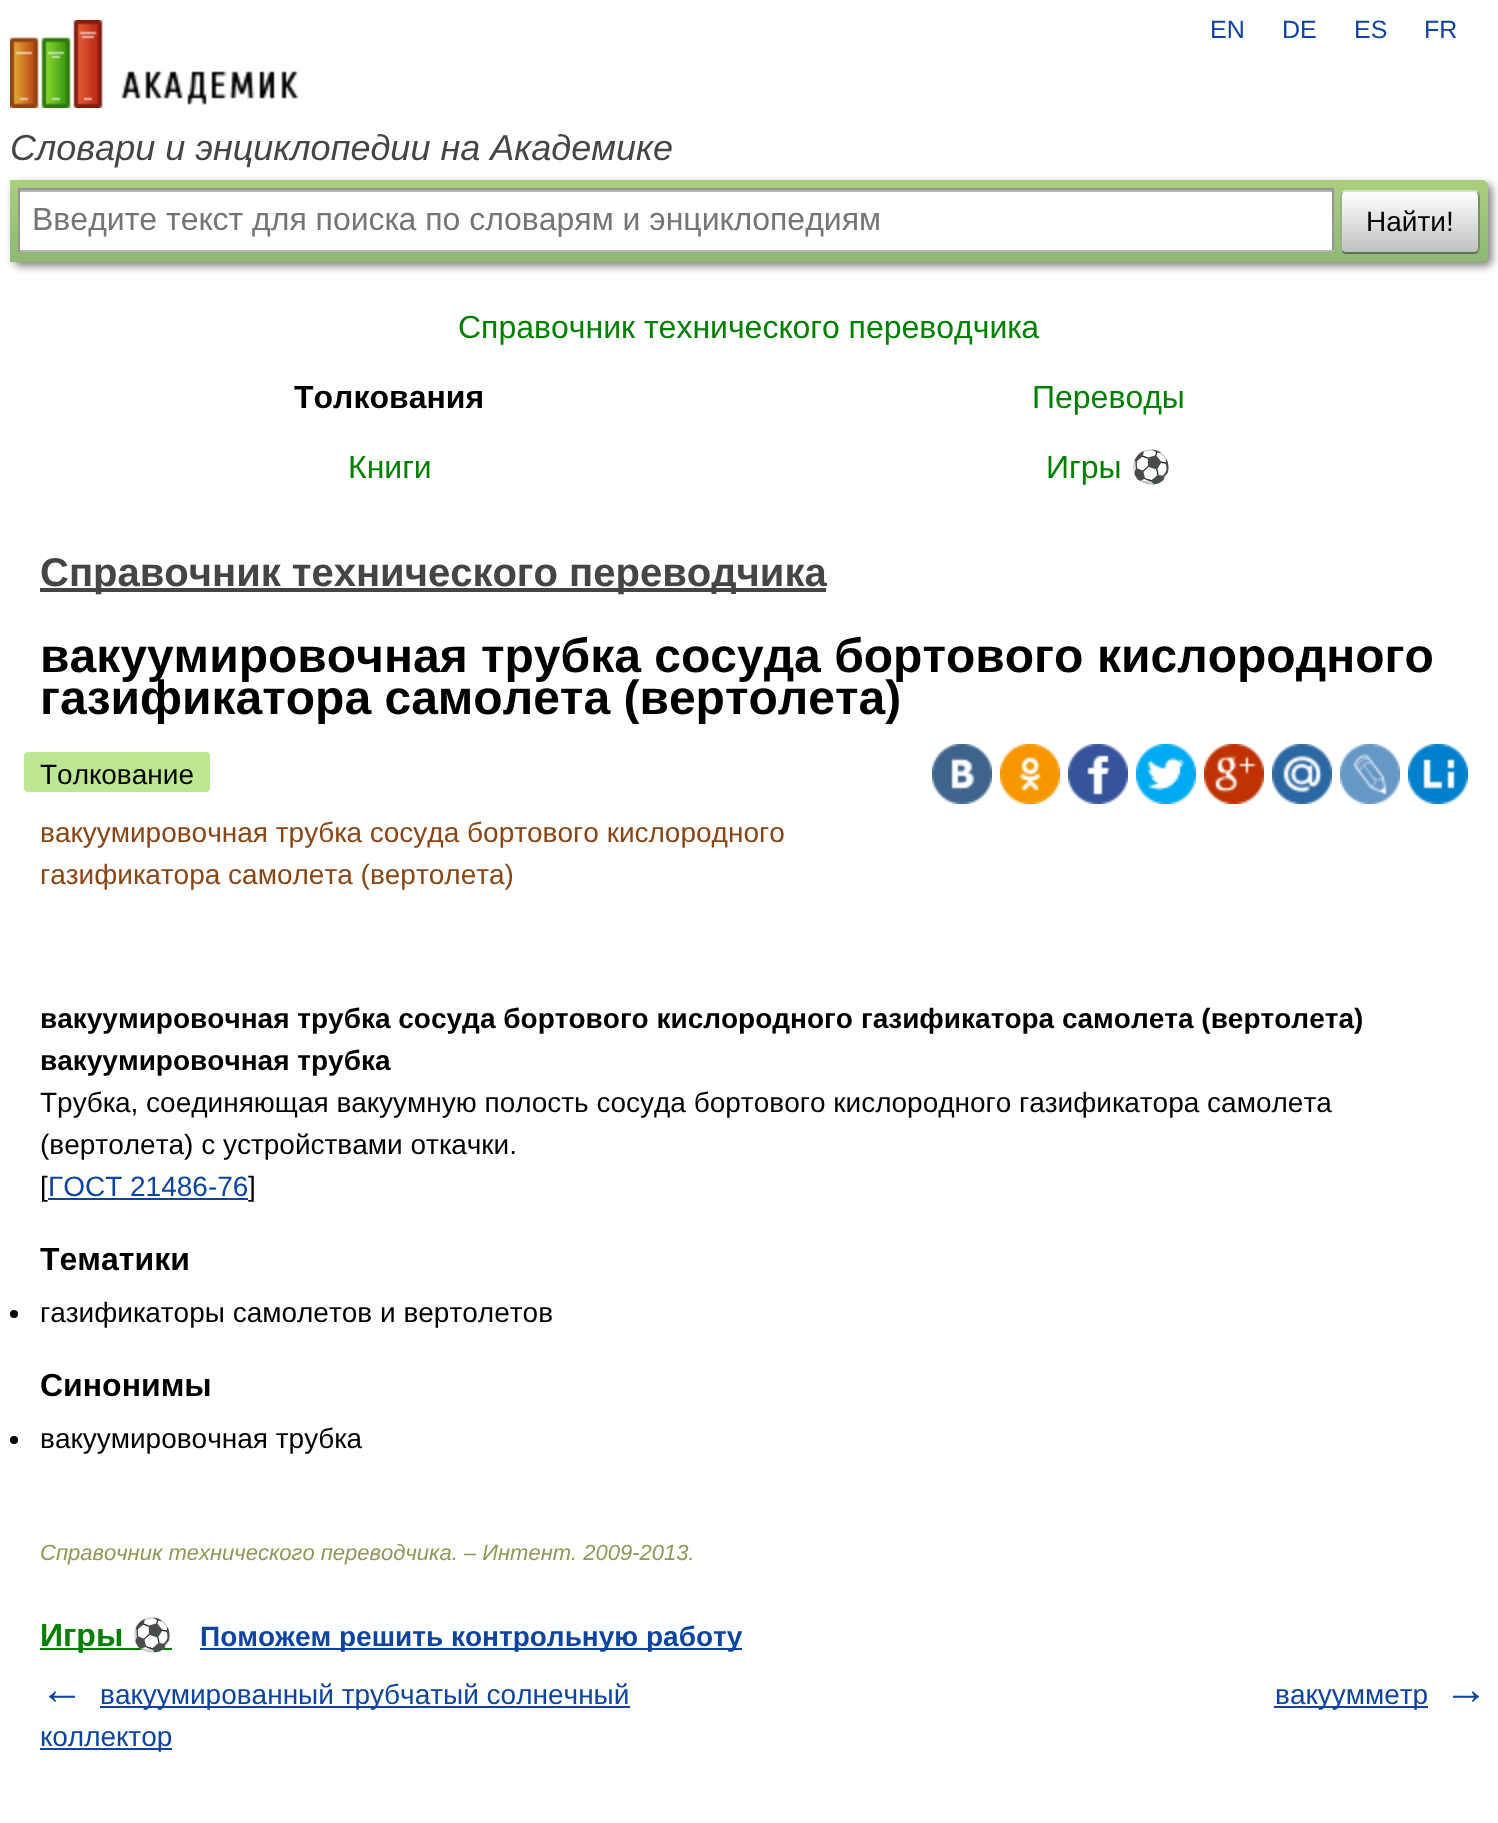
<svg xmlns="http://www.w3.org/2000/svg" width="1498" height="1823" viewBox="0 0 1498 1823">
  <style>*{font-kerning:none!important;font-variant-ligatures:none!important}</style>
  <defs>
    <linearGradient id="g1" gradientUnits="userSpaceOnUse" x1="749" y1="180" x2="749" y2="262"><stop offset="0" stop-color="#abcf7e"/><stop offset="1" stop-color="#8eb874"/></linearGradient>
    <clipPath id="clip1"><rect x="1340" y="190" width="140" height="64" rx="6"/></clipPath>
    <linearGradient id="g2" gradientUnits="userSpaceOnUse" x1="1410" y1="192" x2="1410" y2="252"><stop offset="0" stop-color="#fff"/><stop offset="1" stop-color="#c1c1c1"/></linearGradient>
  </defs>
  <rect width="100%" height="100%" fill="#fff"/>
  <image x="10" y="20" width="288" height="88" href="img/1.png"/>
  <rect x="14" y="184" width="1478" height="82" rx="6" fill="#00000080" filter="blur(4px)"/>
  <path d="M10 180H1482C1485.5 180 1488 182.5 1488 186V256C1488 259.5 1485.5 262 1482 262H10Z" fill="url(#g1)"/>
  <path d="M20 192h1312v58H20z" fill="#fff"/>
  <path d="M20 190h1312v2H20z" fill="#b3b3b3"/>
  <path d="M18 188h1316v2H18z" fill="#949494"/>
  <path d="M1332 188h2v64H1332z" fill="#949494"/>
  <path d="M18 250h1316v2H18z" fill="#b4b4b4"/>
  <path d="M18 188h2v64H18z" fill="#949494"/>
  <g clip-path="url(#clip1)">
    <path d="M1340 192h140v60H1340z" fill="url(#g2)"/>
  </g>
  <path d="M1342.5 192.5C1343.5 191.5 1344.5 191 1346 191H1474C1475.5 191 1476.5 191.5 1477.5 192.5" fill="none" stroke="#d1e4bc" stroke-width="2"/>
  <path d="M1477.5 192.5C1478.5 193.5 1479 194.5 1479 196V248C1479 249.5 1478.5 250.5 1477.5 251.5" fill="none" stroke="#7a8e69" stroke-width="2"/>
  <path d="M1477.5 251.5C1476.5 252.5 1475.5 253 1474 253H1346C1344.5 253 1343.5 252.5 1342.5 251.5" fill="none" stroke="#5d7250" stroke-width="2"/>
  <path d="M1342.5 251.5C1341.5 250.5 1341 249.5 1341 248V196C1341 194.5 1341.5 193.5 1342.5 192.5" fill="none" stroke="#9aae89" stroke-width="2"/>
  <path d="M40 588h786v4H40z" fill="#454545"/>
  <rect x="24" y="752" width="186" height="40" rx="4" fill="#bde693"/>
  <image x="932" y="744" width="60" height="60" href="img/2.png"/>
  <image x="1000" y="744" width="60" height="60" href="img/3.png"/>
  <image x="1068" y="744" width="60" height="60" href="img/4.png"/>
  <image x="1136" y="744" width="60" height="60" href="img/5.png"/>
  <image x="1204" y="744" width="60" height="60" href="img/6.png"/>
  <image x="1272" y="744" width="60" height="60" href="img/7.png"/>
  <image x="1340" y="744" width="60" height="60" href="img/8.png"/>
  <image x="1408" y="744" width="60" height="60" href="img/9.png"/>
  <path d="M48 1198h200v2H48z" fill="#0d44a0"/>
  <circle cx="14" cy="1314" r="4" fill="#000"/>
  <circle cx="14" cy="1440" r="4" fill="#000"/>
  <path d="M40 1648h132v2H40z" fill="#008000"/>
  <path d="M200 1648h542v2H200z" fill="#0d44a0"/>
  <path d="M100 1706h530v2H100z" fill="#0d44a0"/>
  <path d="M40 1748h132v2H40z" fill="#0d44a0"/>
  <path d="M1274 1706h154v2H1274z" fill="#0d44a0"/>
  <g font-family="Liberation Sans" font-size="25" fill="#0d44a0">
    <text x="1210" y="38">EN</text>
    <text x="1282" y="38">DE</text>
    <text x="1354" y="38">ES</text>
    <text x="1424" y="38">FR</text>
  </g>
  <text x="10" y="160" font-family="Liberation Sans" font-size="36" font-style="italic" fill="#454545">Словари и энциклопедии на Академике</text>
  <text x="32" y="230" font-family="Liberation Sans" font-size="32" fill="#757575">Введите текст для поиска по словарям и энциклопедиям</text>
  <text x="1366" y="231" font-family="Liberation Sans" font-size="28" fill="#000">Найти!</text>
  <text x="458" y="338" font-family="Liberation Sans" font-size="32" fill="#008000">Справочник технического переводчика</text>
  <text x="294" y="408" font-family="Liberation Sans" font-size="32" font-weight="bold" fill="#000">Толкования</text>
  <g font-family="Liberation Sans" font-size="32" fill="#008000">
    <text x="1032" y="408">Переводы</text>
    <text x="348" y="478">Книги</text>
    <text x="1046" y="478">Игры</text>
  </g>
  <text x="1131" y="478" font-family="Noto Color Emoji" font-size="32" fill="#008000">⚽</text>
  <text x="40" y="586" font-family="Liberation Sans" font-size="40" font-weight="bold" fill="#454545">Справочник технического переводчика</text>
  <g font-family="Liberation Sans" font-size="48" font-weight="bold" fill="#000">
    <text x="40" y="672">вакуумировочная трубка сосуда бортового</text>
    <text x="1097" y="672">кислородного</text>
    <text x="40" y="714">газификатора самолета (вертолета)</text>
  </g>
  <text x="40" y="784" font-family="Liberation Sans" font-size="28" fill="#000">Толкование</text>
  <g font-family="Liberation Sans" font-size="28" fill="#8b4513">
    <text x="40" y="842">вакуумировочная трубка сосуда бортового кислородного</text>
    <text x="40" y="884">газификатора самолета (вертолета)</text>
  </g>
  <g font-family="Liberation Sans" font-size="28" font-weight="bold" fill="#000">
    <text x="40" y="1028">вакуумировочная трубка сосуда бортового кислородного</text>
    <text x="861" y="1028">газификатора самолета (вертолета)</text>
    <text x="40" y="1070">вакуумировочная трубка</text>
  </g>
  <g font-family="Liberation Sans" font-size="28" fill="#000">
    <text x="40" y="1112">Трубка, соединяющая вакуумную полость сосуда бортового кислородного</text>
    <text x="1019" y="1112">газификатора самолета</text>
    <text x="40" y="1154">(вертолета) с устройствами откачки.</text>
    <text x="40" y="1196">[</text>
  </g>
  <text x="48" y="1196" font-family="Liberation Sans" font-size="28" fill="#0d44a0">ГОСТ 21486-76</text>
  <text x="248" y="1196" font-family="Liberation Sans" font-size="28" fill="#000">]</text>
  <text x="40" y="1270" font-family="Liberation Sans" font-size="32" font-weight="bold" fill="#000">Тематики</text>
  <text x="40" y="1322" font-family="Liberation Sans" font-size="28" fill="#000">газификаторы самолетов и вертолетов</text>
  <text x="40" y="1396" font-family="Liberation Sans" font-size="32" font-weight="bold" fill="#000">Синонимы</text>
  <text x="40" y="1448" font-family="Liberation Sans" font-size="28" fill="#000">вакуумировочная трубка</text>
  <text x="40" y="1560" font-family="Liberation Sans" font-size="22" font-style="italic" fill="#939756">Справочник технического переводчика. – Интент. 2009-2013.</text>
  <text x="40" y="1646" font-family="Liberation Sans" font-size="32" font-weight="bold" fill="#008000">Игры</text>
  <text x="132" y="1646" font-family="Noto Color Emoji" font-size="32" font-weight="bold" fill="#008000">⚽</text>
  <text x="200" y="1646" font-family="Liberation Sans" font-size="28" font-weight="bold" fill="#0d44a0">Поможем решить контрольную работу</text>
  <text x="40" y="1704" font-family="Liberation Sans" font-size="44" font-weight="bold" fill="#0d44a0">←</text>
  <g font-family="Liberation Sans" font-size="28" fill="#0d44a0">
    <text x="100" y="1704">вакуумированный трубчатый солнечный</text>
    <text x="40" y="1746">коллектор</text>
    <text x="1275" y="1704">вакуумметр</text>
  </g>
  <text x="1444" y="1704" font-family="Liberation Sans" font-size="44" font-weight="bold" fill="#0d44a0">→</text>
</svg>
